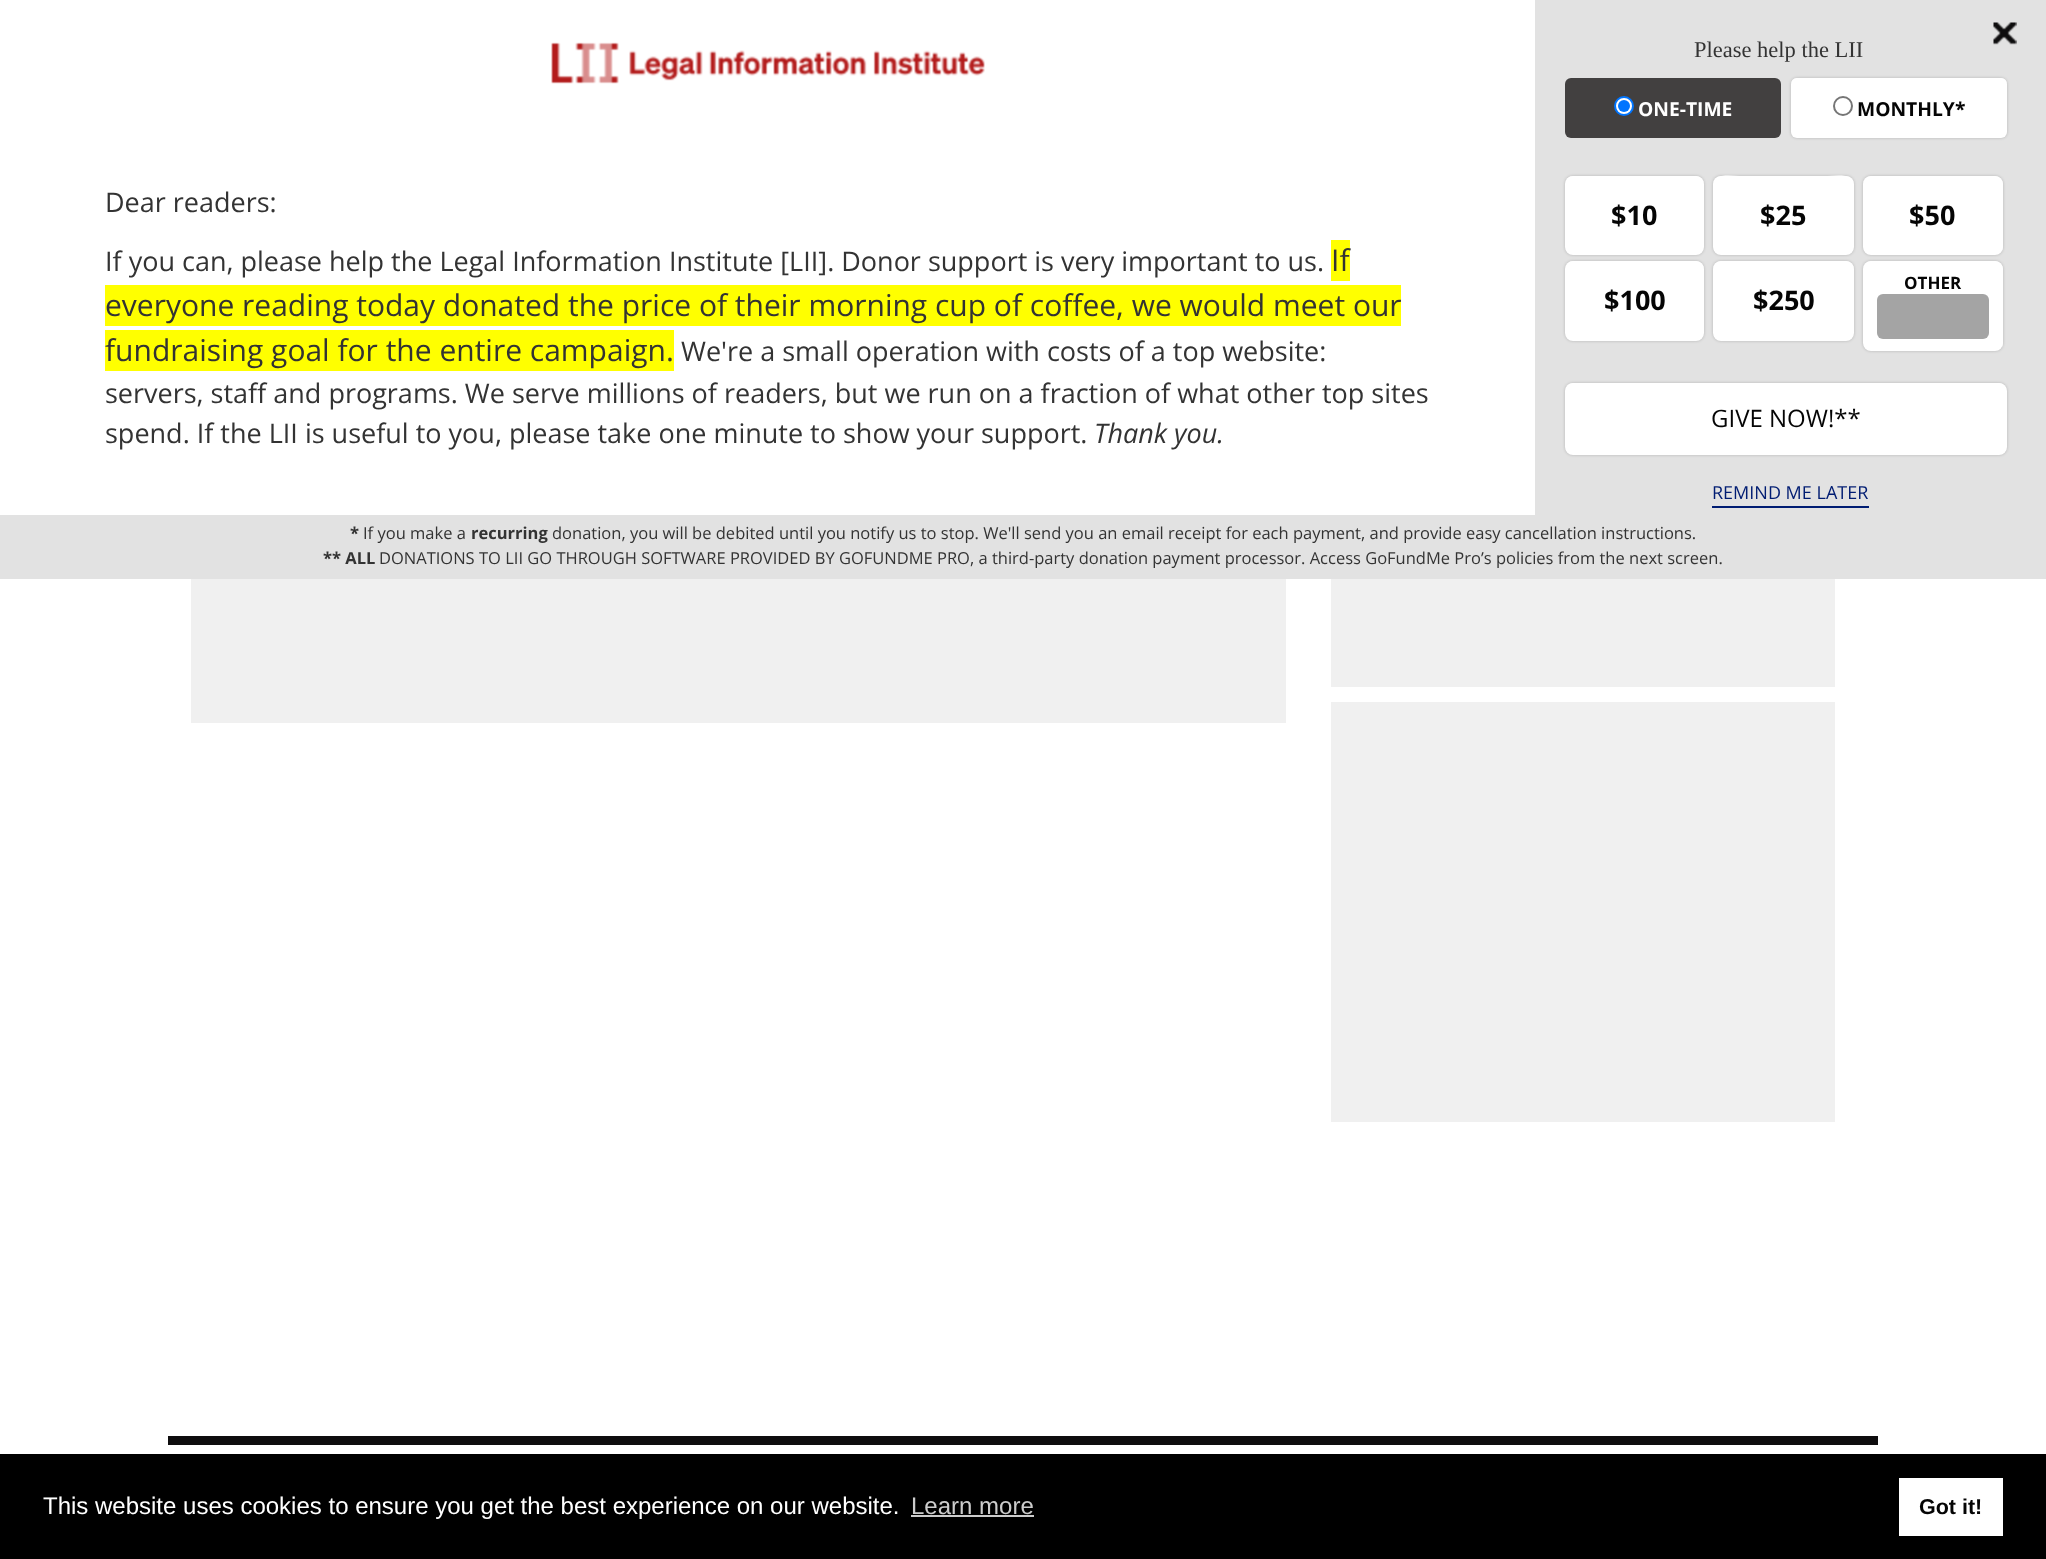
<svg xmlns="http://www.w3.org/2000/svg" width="2046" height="1559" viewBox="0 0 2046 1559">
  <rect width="100%" height="100%" fill="#fff"/>
  <image x="551" y="42" width="434" height="42" href="img/1.png"/>
  <path d="M1331 240h19v41H1331z" fill="#ff0"/>
  <path d="M105 285h1296v41H105z" fill="#ff0"/>
  <path d="M105 330h569v41H105z" fill="#ff0"/>
  <path d="M1535 0h511v515H1535z" fill="#e2e2e2"/>
  <image x="1993" y="22" width="24" height="23" href="img/2.png"/>
  <rect x="1565" y="78" width="216" height="60" rx="6" fill="#424040"/>
  <circle cx="1624" cy="106" r="9" fill="#fff" stroke="#0075ff" stroke-width="2"/>
  <circle cx="1624" cy="106" r="6" fill="#0075ff"/>
  <rect x="1791" y="78" width="216" height="60" rx="6" fill="#00000033" filter="blur(1.5px)"/>
  <rect x="1791" y="78" width="216" height="60" rx="6" fill="#fff"/>
  <path d="M1797 80H2001C2004 80 2007 82 2007 85C2007 82 2006 79 2002 78H1797C1793 78 1791 81 1791 85C1791 82 1794 80 1797 80Z" fill="#ffffffbf"/>
  <circle cx="1843" cy="106" r="9" fill="none" stroke="#767676" stroke-width="2"/>
  <rect x="1565" y="176" width="139" height="79" rx="8" fill="#00000033" filter="blur(1.5px)"/>
  <rect x="1565" y="176" width="139" height="79" rx="8" fill="#fff"/>
  <path d="M1573 177H1696C1700 177 1704 181 1704 185V184C1704 180 1700 176 1696 176H1573C1570 176 1567 178 1566 180C1568 178 1570 177 1573 177Z" fill="#ffffffbf"/>
  <rect x="1713" y="176" width="141" height="79" rx="8" fill="#00000033" filter="blur(1.5px)"/>
  <rect x="1713" y="176" width="141" height="79" rx="8" fill="#fff"/>
  <path d="M1721 177H1846C1850 177 1854 181 1854 185C1854 171 1832 176 1825 176H1742C1735 176 1713 171 1713 185C1713 181 1717 177 1721 177Z" fill="#ffffffbf"/>
  <rect x="1863" y="176" width="140" height="79" rx="8" fill="#00000033" filter="blur(1.5px)"/>
  <rect x="1863" y="176" width="140" height="79" rx="8" fill="#fff"/>
  <path d="M1871 177H1994C1999 177 2002 181 2002 185V248L2001 252C2002 251 2003 249 2003 247V184C2003 180 1999 176 1995 176H1871C1867 176 1863 180 1863 184V185C1863 181 1867 177 1871 177Z" fill="#ffffffbf"/>
  <rect x="1863" y="261" width="140" height="90" rx="8" fill="#00000033" filter="blur(1.5px)"/>
  <rect x="1863" y="261" width="140" height="90" rx="8" fill="#fff"/>
  <path d="M1870 262H1995C1999 262 2002 266 2002 270V345V348C2002 346 2003 345 2003 343V269C2003 265 1999 261 1995 261H1871C1867 261 1863 265 1863 269V270C1863 266 1866 262 1870 262Z" fill="#ffffffbf"/>
  <rect x="1877" y="294" width="112" height="45" rx="6" fill="#a4a4a4"/>
  <rect x="1565" y="261" width="139" height="80" rx="8" fill="#00000033" filter="blur(1.5px)"/>
  <rect x="1565" y="261" width="139" height="80" rx="8" fill="#fff"/>
  <path d="M1573 262H1696C1700 262 1704 266 1704 271V269C1704 265 1700 261 1696 261H1573C1570 261 1567 263 1566 266C1567 263 1570 262 1573 262Z" fill="#ffffffbf"/>
  <rect x="1713" y="261" width="141" height="80" rx="8" fill="#00000033" filter="blur(1.5px)"/>
  <rect x="1713" y="261" width="141" height="80" rx="8" fill="#fff"/>
  <path d="M1721 262H1846C1850 262 1854 266 1854 271V269C1854 265 1850 261 1846 261H1721C1717 261 1713 265 1713 269V271C1713 266 1717 262 1721 262Z" fill="#ffffffbf"/>
  <rect x="1565" y="383" width="442" height="72" rx="8" fill="#00000033" filter="blur(1.5px)"/>
  <rect x="1565" y="383" width="442" height="72" rx="8" fill="#fff"/>
  <path d="M1572 384H2000C2004 384 2007 387 2007 391C2007 387 2003 383 1999 383H1573C1571 383 1569 384 1567 385C1569 385 1570 384 1572 384Z" fill="#ffffffbf"/>
  <path d="M1712 506h157v2H1712z" fill="#001c72"/>
  <path d="M0 515h2046v64H0z" fill="#e2e2e2"/>
  <path d="M191 579h1095v144H191z" fill="#f0f0f0"/>
  <path d="M1331 579h504v108H1331z" fill="#f0f0f0"/>
  <path d="M1331 702h504v420H1331z" fill="#f0f0f0"/>
  <path d="M168 1436h1710v9H168z" fill="#0e0d0e"/>
  <path d="M0 1454h2046v105H0z" fill="#000"/>
  <path d="M911 1515h123v2H911z" fill="#ccc"/>
  <path d="M1899 1478h104v58H1899z" fill="#fff"/>
  <g font-family="Open Sans" font-size="27" fill="#333">
    <text x="105" y="212">Dear readers:</text>
    <text x="105" y="271">If you can, please help the Legal Information Institute [LII]. Donor support is very important to us.</text>
  </g>
  <g font-family="Open Sans" font-size="30" fill="#333">
    <text x="1331" y="271">If</text>
    <text x="105" y="316">everyone reading today donated the price of their morning cup of coffee, we would meet our</text>
    <text x="105" y="361">fundraising goal for the entire campaign.</text>
  </g>
  <g font-family="Open Sans" font-size="27" fill="#333">
    <text x="681" y="361">We're a small operation with costs of a top website:</text>
    <text x="105" y="403">servers, staff and programs. We serve millions of readers, but we run on a fraction of what other top sites</text>
    <text x="105" y="443">spend. If the LII is useful to you, please take one minute to show your support.</text>
  </g>
  <text x="1094" y="443" font-family="Open Sans" font-size="27" font-style="italic" fill="#333">Thank you.</text>
  <text x="1694" y="57" font-family="Liberation Serif" font-size="22.5" fill="#333">Please help the LII</text>
  <text x="1638" y="116" font-family="Open Sans" font-size="19.25" font-weight="bold" fill="#fff">ONE-TIME</text>
  <text x="1857" y="116" font-family="Open Sans" font-size="19.25" font-weight="bold" fill="#050505">MONTHLY*</text>
  <g font-family="Open Sans" font-size="27" font-weight="bold" fill="#050505">
    <text x="1611" y="225">$10</text>
    <text x="1760" y="225">$25</text>
    <text x="1909" y="225">$50</text>
  </g>
  <text x="1904" y="289" font-family="Open Sans" font-size="17" font-weight="bold" fill="#050505">OTHER</text>
  <g font-family="Open Sans" font-size="27" font-weight="bold" fill="#050505">
    <text x="1604" y="310">$100</text>
    <text x="1753" y="310">$250</text>
  </g>
  <text x="1711" y="427" font-family="Open Sans" font-size="24" fill="#050505">GIVE NOW!**</text>
  <text x="1712" y="499" font-family="Open Sans" font-size="18" fill="#001c72">REMIND ME LATER</text>
  <text x="350" y="539" font-family="Open Sans" font-size="16.5" font-weight="bold" fill="#333">*</text>
  <text x="363" y="539" font-family="Open Sans" font-size="16.5" fill="#333">If you make a</text>
  <text x="471" y="539" font-family="Open Sans" font-size="16.5" font-weight="bold" fill="#333">recurring</text>
  <text x="552" y="539" font-family="Open Sans" font-size="16.5" fill="#333">donation, you will be debited until you notify us to stop. We'll send you an email receipt for each payment, and provide easy cancellation instructions.</text>
  <text x="323" y="564" font-family="Open Sans" font-size="16.5" font-weight="bold" fill="#333">** ALL</text>
  <text x="379" y="564" font-family="Open Sans" font-size="16.5" fill="#333">DONATIONS TO LII GO THROUGH SOFTWARE PROVIDED BY GOFUNDME PRO, a third-party donation payment processor. Access GoFundMe Pro’s policies from the next screen.</text>
  <text x="43" y="1514" font-family="Liberation Sans" font-size="24" fill="#fff">This website uses cookies to ensure you get the best experience on our website.</text>
  <text x="911" y="1514" font-family="Liberation Sans" font-size="24" fill="#ccc">Learn more</text>
  <text x="1919" y="1514" font-family="Liberation Sans" font-size="21.5" font-weight="bold" fill="#050505">Got it!</text>
</svg>
